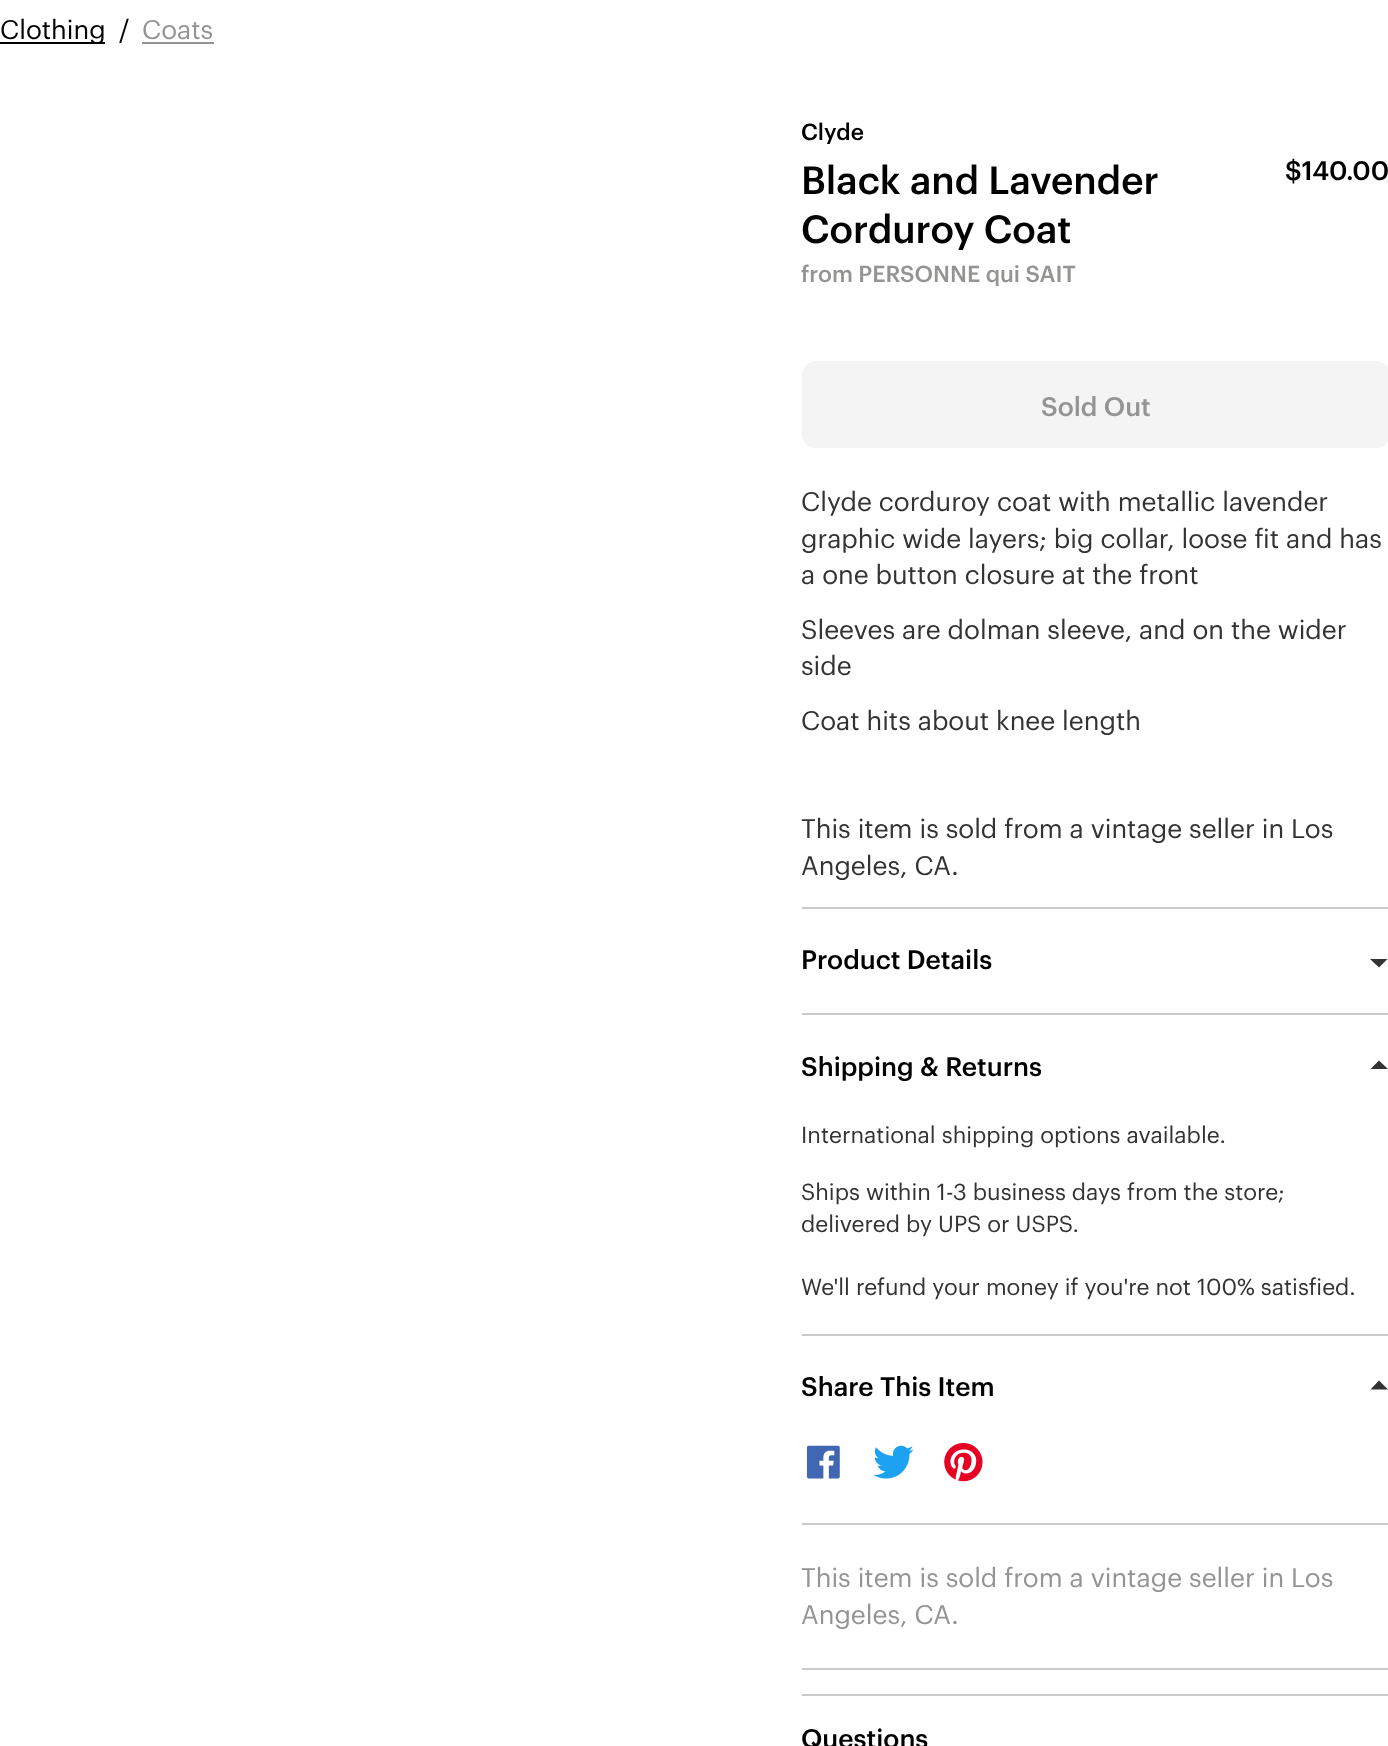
<svg xmlns="http://www.w3.org/2000/svg" width="1388" height="1746" viewBox="0 0 1388 1746">
  <rect width="100%" height="100%" fill="#fff"/>
  <path d="M0 42h105v2H0z" fill="#000"/>
  <path d="M142 42h72v2H142z" fill="#949493"/>
  <rect x="802" y="361" width="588" height="87" rx="14" fill="#f4f4f4"/>
  <path d="M802 907h586v2H802z" fill="#cbcbcb"/>
  <path d="M1387.5 959L1379 967.5L1370 959Z" fill="#333" fill-rule="evenodd"/>
  <path d="M802 1013h586v2H802z" fill="#cbcbcb"/>
  <path d="M1370.5 1069L1379 1060.5L1388 1069Z" fill="#333" fill-rule="evenodd"/>
  <path d="M802 1334h586v2H802z" fill="#cbcbcb"/>
  <path d="M1370.5 1389.5L1379 1380.5L1388 1389.5Z" fill="#333" fill-rule="evenodd"/>
  <image x="806" y="1445" width="34" height="34" href="img/1.png"/>
  <image x="873" y="1445" width="41" height="34" href="img/2.png"/>
  <image x="944" y="1443" width="39" height="39" href="img/3.png"/>
  <path d="M802 1523h586v2H802z" fill="#cbcbcb"/>
  <path d="M802 1668h586v2H802z" fill="#cbcbcb"/>
  <path d="M802 1694h586v2H802z" fill="#cbcbcb"/>
  <g font-family="Graphik" font-size="26.25" fill="#000">
    <text x="0" y="39">Clothing</text>
    <text x="119" y="39">/</text>
  </g>
  <text x="142" y="39" font-family="Graphik" font-size="26.25" fill="#949493">Coats</text>
  <text x="801" y="140" font-family="Graphik" font-size="22.75" font-weight="500" fill="#000">Clyde</text>
  <g font-family="Graphik" font-size="38.5" font-weight="500" fill="#000">
    <text x="801" y="194">Black and Lavender</text>
    <text x="801" y="243">Corduroy Coat</text>
  </g>
  <text x="1285" y="180" font-family="Graphik" font-size="26.25" font-weight="500" fill="#000">$140.00</text>
  <text x="801" y="282" font-family="Graphik" font-size="22.75" font-weight="500" fill="#949493">from PERSONNE qui SAIT</text>
  <text x="1041" y="416" font-family="Graphik" font-size="26.25" font-weight="500" fill="#949493">Sold Out</text>
  <g font-family="Graphik" font-size="26.25" fill="#333">
    <text x="801" y="511">Clyde corduroy coat with metallic lavender</text>
    <text x="801" y="548">graphic wide layers; big collar, loose fit and has</text>
    <text x="801" y="584">a one button closure at the front</text>
    <text x="801" y="639">Sleeves are dolman sleeve, and on the wider</text>
    <text x="801" y="675">side</text>
    <text x="801" y="730">Coat hits about knee length</text>
    <text x="801" y="838">This item is sold from a vintage seller in Los</text>
    <text x="801" y="875">Angeles, CA.</text>
  </g>
  <g font-family="Graphik" font-size="26.25" font-weight="500" fill="#000">
    <text x="801" y="969">Product Details</text>
    <text x="801" y="1076">Shipping &amp; Returns</text>
  </g>
  <g font-family="Graphik" font-size="22.75" fill="#333">
    <text x="801" y="1143">International shipping options available.</text>
    <text x="801" y="1200">Ships within 1-3 business days from the store;</text>
    <text x="801" y="1232">delivered by UPS or USPS.</text>
    <text x="801" y="1295">We'll refund your money if you're not 100% satisfied.</text>
  </g>
  <text x="801" y="1396" font-family="Graphik" font-size="26.25" font-weight="500" fill="#000">Share This Item</text>
  <g font-family="Graphik" font-size="26.25" fill="#949493">
    <text x="801" y="1587">This item is sold from a vintage seller in Los</text>
    <text x="801" y="1624">Angeles, CA.</text>
  </g>
  <text x="801" y="1748" font-family="Graphik" font-size="26.25" font-weight="500" fill="#000">Questions</text>
</svg>
